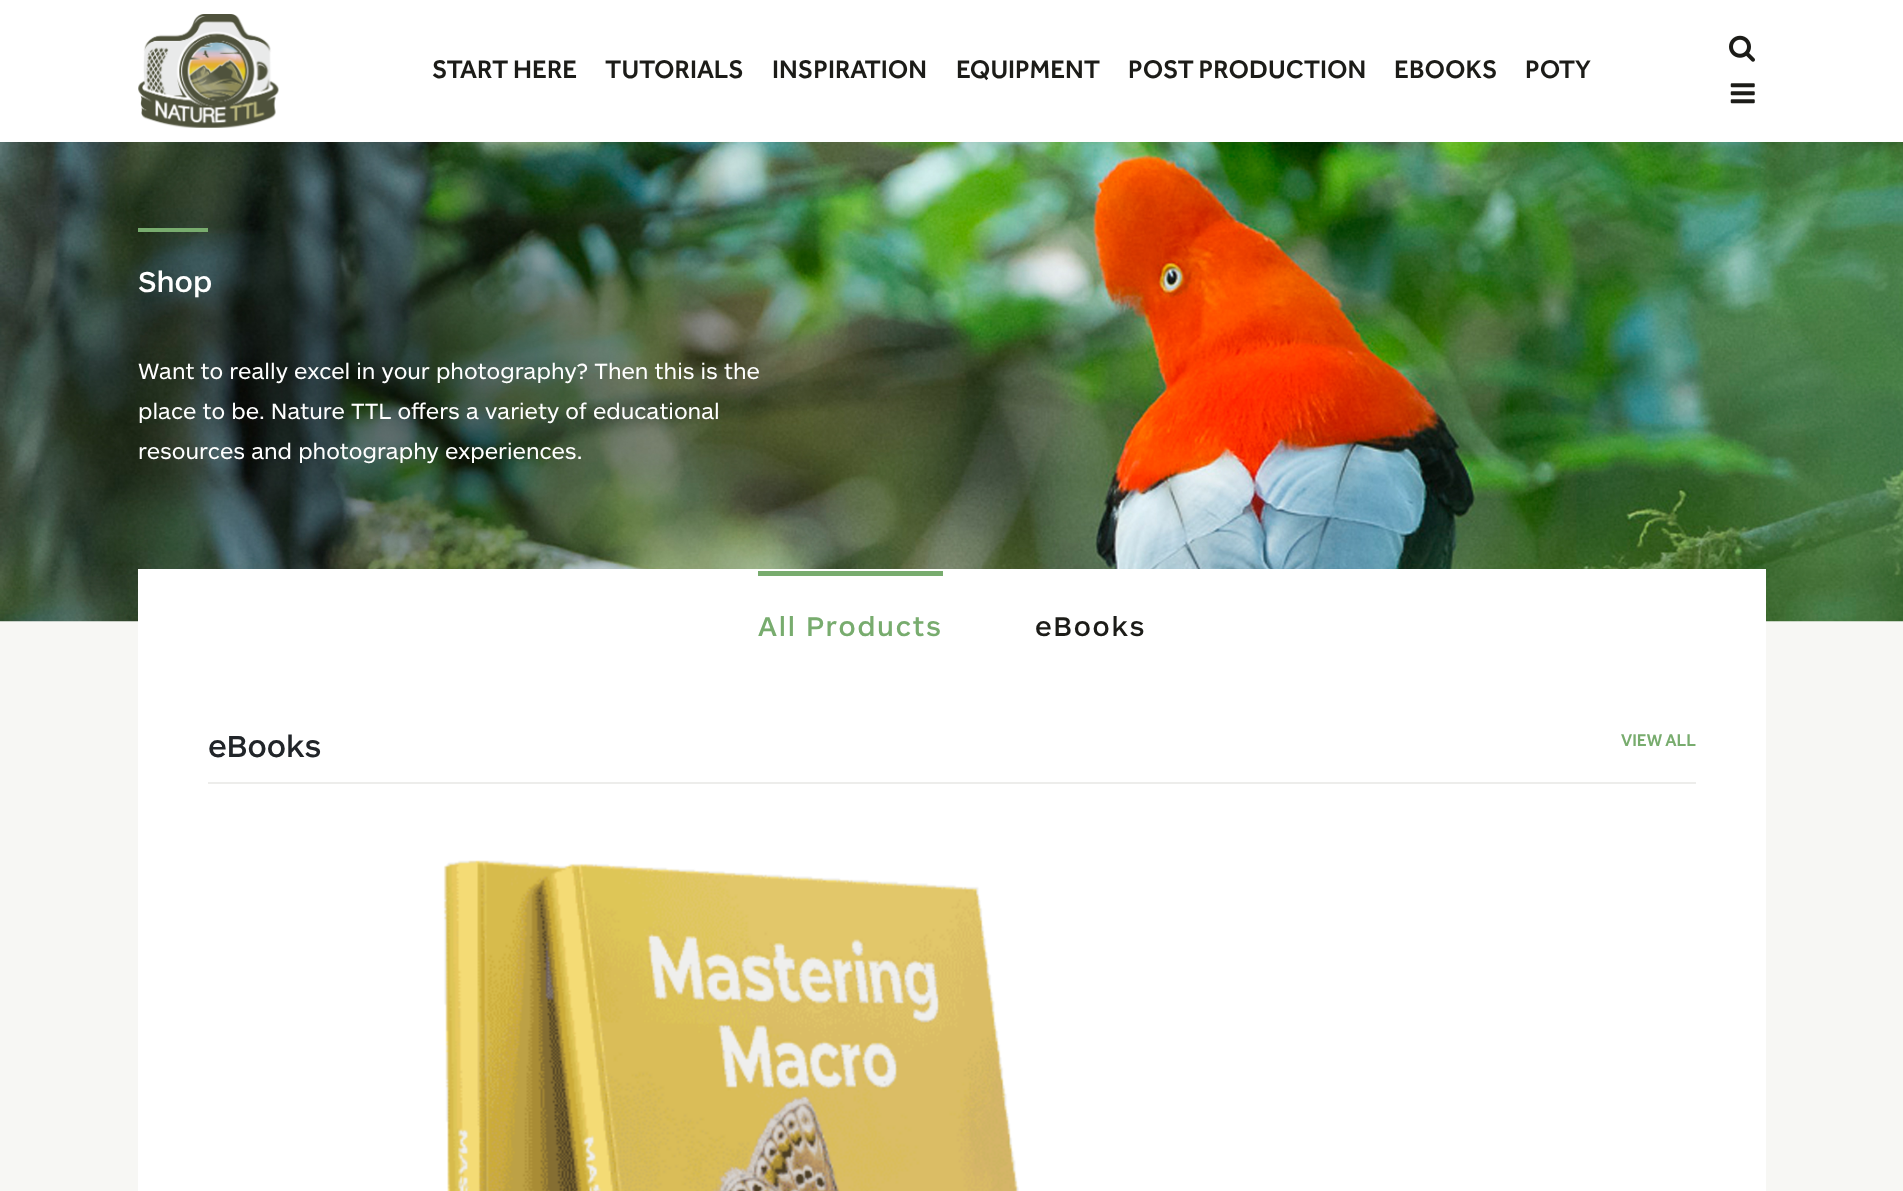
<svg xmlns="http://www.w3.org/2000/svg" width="1903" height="1191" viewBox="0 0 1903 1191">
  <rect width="100%" height="100%" fill="#f7f7f4"/>
  <path d="M0 0h1903v142H0z" fill="#fff"/>
  <image x="138" y="14" width="141" height="114" href="img/1.png"/>
  <image x="1729" y="35" width="26" height="27" href="img/2.png"/>
  <image x="1730" y="83" width="25" height="21" href="img/3.png"/>
  <image x="0" y="142" width="1903" height="480" href="img/4.png"/>
  <path d="M138 228h70v4H138z" fill="#78ac6e"/>
  <path d="M138 569h1628v622H138z" fill="#fff"/>
  <path d="M758 571h185v5H758z" fill="#78ac6e"/>
  <path d="M208 782h1488v2H208z" fill="#ededeb"/>
  <image x="443" y="860" width="576" height="331" href="img/5.png"/>
  <g font-family="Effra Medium" font-size="26.25" font-weight="500" fill="#1c1c18">
    <text x="432" y="78">START HERE</text>
    <text x="605" y="78">TUTORIALS</text>
    <text x="772" y="78">INSPIRATION</text>
    <text x="956" y="78">EQUIPMENT</text>
    <text x="1128" y="78">POST PRODUCTION</text>
    <text x="1394" y="78">EBOOKS</text>
    <text x="1525" y="78">POTY</text>
  </g>
  <text x="138" y="292" font-family="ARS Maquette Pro" font-size="30" font-weight="500" fill="#fff">Shop</text>
  <g font-family="ARS Maquette Pro" font-size="22.75" fill="#fff">
    <text x="138" y="379">Want to really excel in your photography? Then this is the</text>
    <text x="138" y="419">place to be. Nature TTL offers a variety of educational</text>
    <text x="138" y="459">resources and photography experiences.</text>
  </g>
  <text x="758" y="636" font-family="ARS Maquette Pro" font-size="28" font-weight="500" letter-spacing="1.75" fill="#78ac6e">All Products</text>
  <text x="1035" y="636" font-family="ARS Maquette Pro" font-size="28" font-weight="500" letter-spacing="1.75" fill="#1c1c18">eBooks</text>
  <text x="208" y="757" font-family="ARS Maquette Pro" font-size="31.5" font-weight="500" fill="#212529">eBooks</text>
  <text x="1621" y="746" font-family="Effra Medium" font-size="17.5" font-weight="500" fill="#78ac6e">VIEW ALL</text>
</svg>
